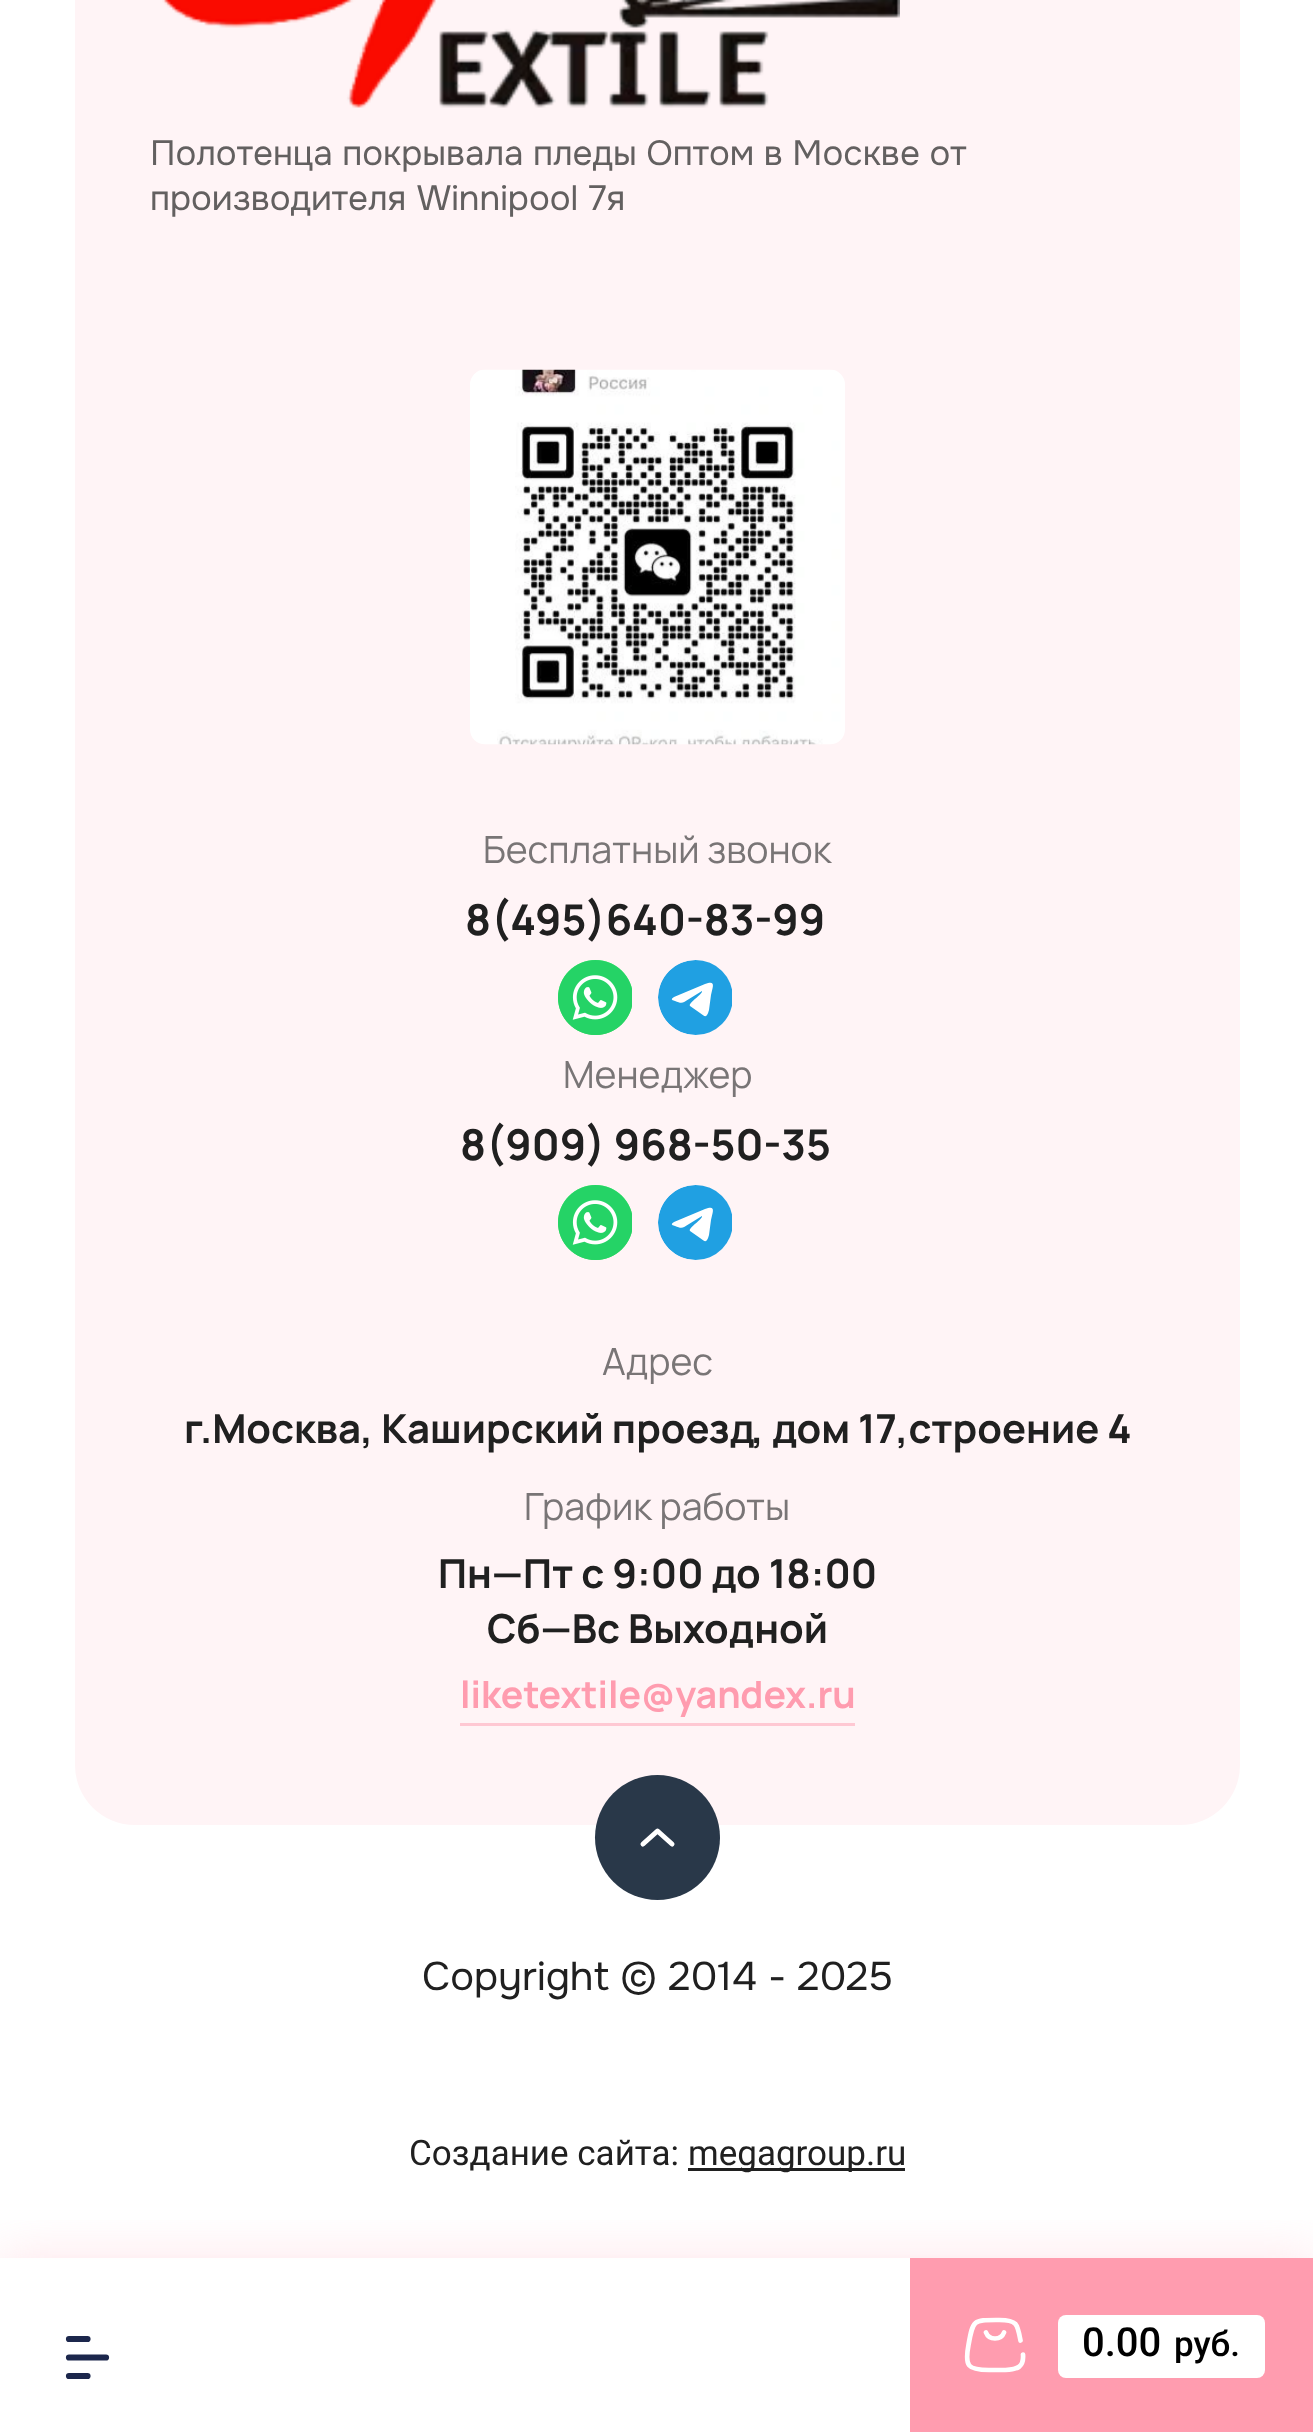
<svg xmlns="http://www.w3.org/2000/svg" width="1313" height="2432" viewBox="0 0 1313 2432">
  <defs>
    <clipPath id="clip1"><rect x="658" y="960" width="75" height="75" rx="37.5"/></clipPath>
    <clipPath id="clip2"><rect x="658" y="1185" width="75" height="75" rx="37.5"/></clipPath>
    <clipPath id="clip3"><path d="M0 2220h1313v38H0z"/></clipPath>
  </defs>
  <rect width="100%" height="100%" fill="#fff"/>
  <rect x="75" y="-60" width="1165" height="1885" rx="60" fill="#fff4f6"/>
  <image x="162" y="0" width="738" height="108" href="img/1.png"/>
  <image x="470" y="369" width="375" height="376" href="img/2.png"/>
  <image x="558" y="960" width="74" height="75" href="img/3.png"/>
  <g clip-path="url(#clip1)">
    <path d="M695.5 960H732V1035H695.5C675 1035 658 1018 658 997.5C658 977 675 960 695.5 960Z" fill="#20a0e2"/>
  </g>
  <path d="M674 997L705 984C716 980 713 986 711 995L709 1010C707 1017 706 1018 700 1013L690 1006C688 1003 703 994 702 991L689 999C683 1003 682 1004 675 1001C671 1000 671 999 674 997Z" fill="#fff" fill-rule="evenodd"/>
  <image x="558" y="1185" width="74" height="75" href="img/3.png"/>
  <g clip-path="url(#clip2)">
    <path d="M695.5 1185H732V1260H695.5C675 1260 658 1243 658 1222.5C658 1202 675 1185 695.5 1185Z" fill="#20a0e2"/>
  </g>
  <path d="M674 1222L705 1209C716 1205 713 1211 711 1220L709 1235C707 1242 706 1243 700 1238L690 1231C688 1228 703 1219 702 1216L689 1224C683 1228 682 1229 675 1226C671 1225 671 1224 674 1222Z" fill="#fff" fill-rule="evenodd"/>
  <path d="M460 1723h395v3H460z" fill="#ffc8d3"/>
  <circle cx="657.5" cy="1837.5" r="62.5" fill="#293849"/>
  <path d="M672 1844L657.5 1831L643 1844" fill="none" stroke="#fff" stroke-width="5" stroke-linecap="round" stroke-linejoin="round"/>
  <path d="M688 2168h217v3H688z" fill="#202020"/>
  <g clip-path="url(#clip3)">
    <path d="M-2 2255h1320v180H-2z" fill="#ff9caf40" filter="blur(25px)"/>
  </g>
  <path d="M69 2339H87.5M69 2357.5H106M69 2376H87.5" fill="none" stroke="#1c274c" stroke-width="6.2" stroke-linecap="round"/>
  <path d="M910 2258h403v174H910z" fill="#ff9caf"/>
  <path d="M1020.5 2340.5C1017.5 2324 1017 2320 999.5 2320C973.5 2320 973 2319 968.5 2345C964.5 2366 967.5 2370 989 2370H1005.5C1017.5 2369.5 1024 2367 1023 2354.5M986 2332.5C989 2340.5 1001 2340.5 1004 2332.5" fill="none" stroke="#fff" stroke-width="4.7" stroke-linecap="round"/>
  <rect x="1058" y="2315" width="207" height="63" rx="8" fill="#fff"/>
  <g font-family="Onest" font-size="35" fill="#636060">
    <text x="150" y="165">Полотенца покрывала пледы Оптом в Москве от</text>
    <text x="150" y="210" word-spacing="1">производителя Winnipool 7я</text>
  </g>
  <text x="483" y="863" font-family="'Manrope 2'" font-size="37.5" font-weight="200" fill="#797576">Бесплатный звонок</text>
  <text x="465" y="935" font-family="Manrope" font-size="42.5" font-weight="200" fill="#202020">8(495)640-83-99</text>
  <text x="563" y="1088" font-family="'Manrope 2'" font-size="37.5" font-weight="200" fill="#797576">Менеджер</text>
  <text x="460" y="1160" font-family="Manrope" font-size="42.5" font-weight="200" fill="#202020">8(909) 968-50-35</text>
  <text x="602" y="1375" font-family="'Manrope 2'" font-size="37.5" font-weight="200" fill="#797576">Адрес</text>
  <text x="184" y="1443" font-family="Manrope" font-size="40" font-weight="200" fill="#202020">г.Москва, Каширский проезд, дом 17,строение 4</text>
  <text x="524" y="1520" font-family="'Manrope 2'" font-size="37.5" font-weight="200" fill="#797576">График работы</text>
  <g font-family="Manrope" font-size="40" font-weight="200" fill="#202020">
    <text x="438" y="1588">Пн—Пт с 9:00 до 18:00</text>
    <text x="487" y="1643">Сб—Вс Выходной</text>
  </g>
  <text x="460" y="1708" font-family="Manrope" font-size="37.5" font-weight="200" fill="#ff9caf">liketextile@yandex.ru</text>
  <text x="422" y="1990" font-family="Onest" font-size="40" fill="#202020">Copyright © 2014 - 2025</text>
  <g font-family="Roboto" font-size="35" fill="#202020">
    <text x="409" y="2165">Создание сайта:</text>
    <text x="688" y="2165">megagroup.ru</text>
  </g>
  <text x="1082" y="2356" font-family="Roboto" font-size="40" font-weight="500" fill="#000">0.00</text>
  <text x="1174" y="2356" font-family="Roboto" font-size="35" font-weight="500" fill="#000">руб.</text>
</svg>
